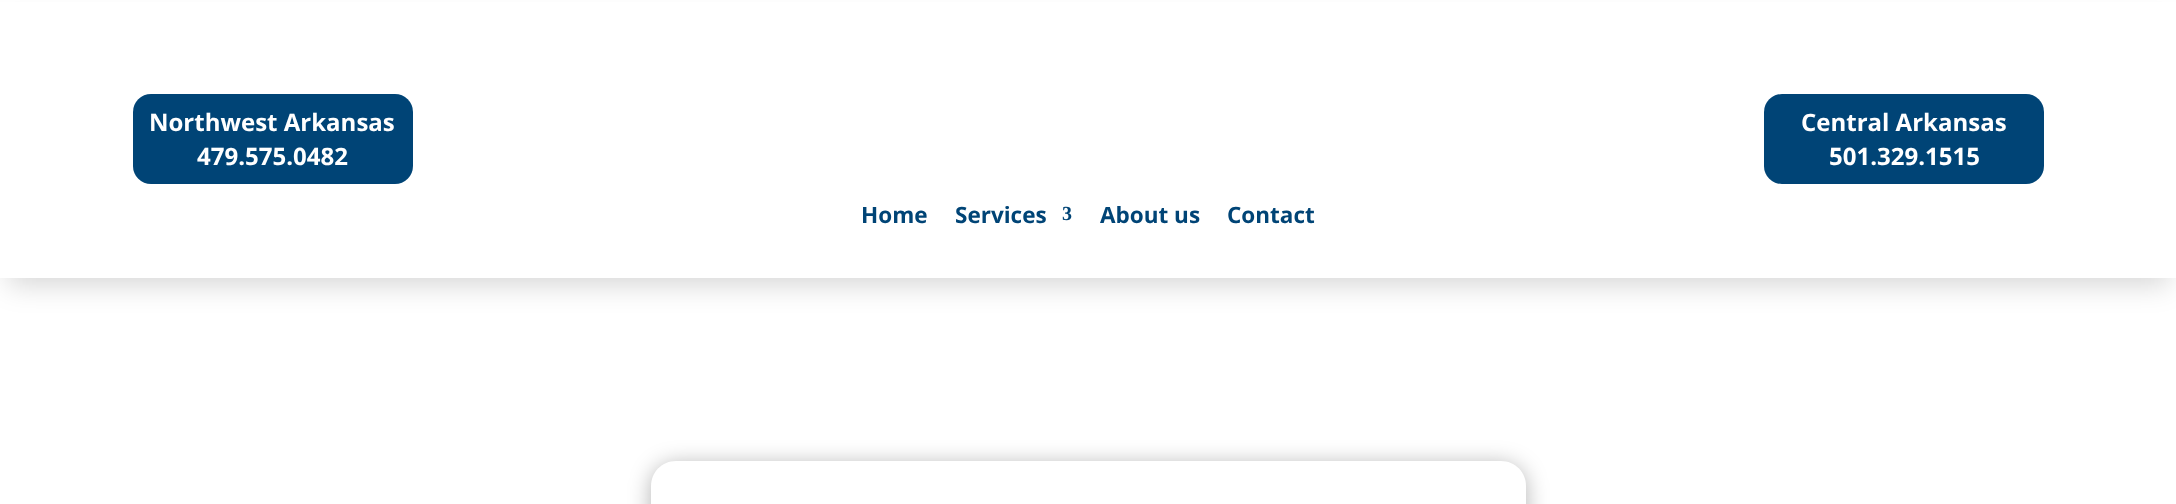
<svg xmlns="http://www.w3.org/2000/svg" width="2176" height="504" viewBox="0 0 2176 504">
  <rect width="100%" height="100%" fill="#fff"/>
  <path d="M8 23h2161v262H8z" fill="#00000029" filter="blur(14px)"/>
  <path d="M0 2h2176v276H0z" fill="#fff"/>
  <rect x="133" y="94" width="280" height="90" rx="18" fill="#004476"/>
  <rect x="1764" y="94" width="280" height="90" rx="18" fill="#004476"/>
  <rect x="651" y="464" width="875" height="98" rx="25" fill="#0000004d" filter="blur(11px)"/>
  <path d="M676 461H1501C1515 461 1526 472 1526 486V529H651V486C651 472 662 461 676 461Z" fill="#fff"/>
  <g font-family="Open Sans" font-size="24" font-weight="bold" fill="#fff">
    <text x="149" y="131">Northwest Arkansas</text>
    <text x="197" y="165">479.575.0482</text>
    <text x="1801" y="131">Central Arkansas</text>
    <text x="1829" y="165">501.329.1515</text>
  </g>
  <g font-family="Open Sans" font-size="22.5" font-weight="bold" fill="#004476">
    <text x="861" y="223">Home</text>
    <text x="955" y="223">Services</text>
  </g>
  <text x="1062" y="220" font-family="Liberation Serif" font-size="20" font-weight="bold" fill="#004476">3</text>
  <g font-family="Open Sans" font-size="22.5" font-weight="bold" fill="#004476">
    <text x="1100" y="223">About us</text>
    <text x="1227" y="223">Contact</text>
  </g>
</svg>
